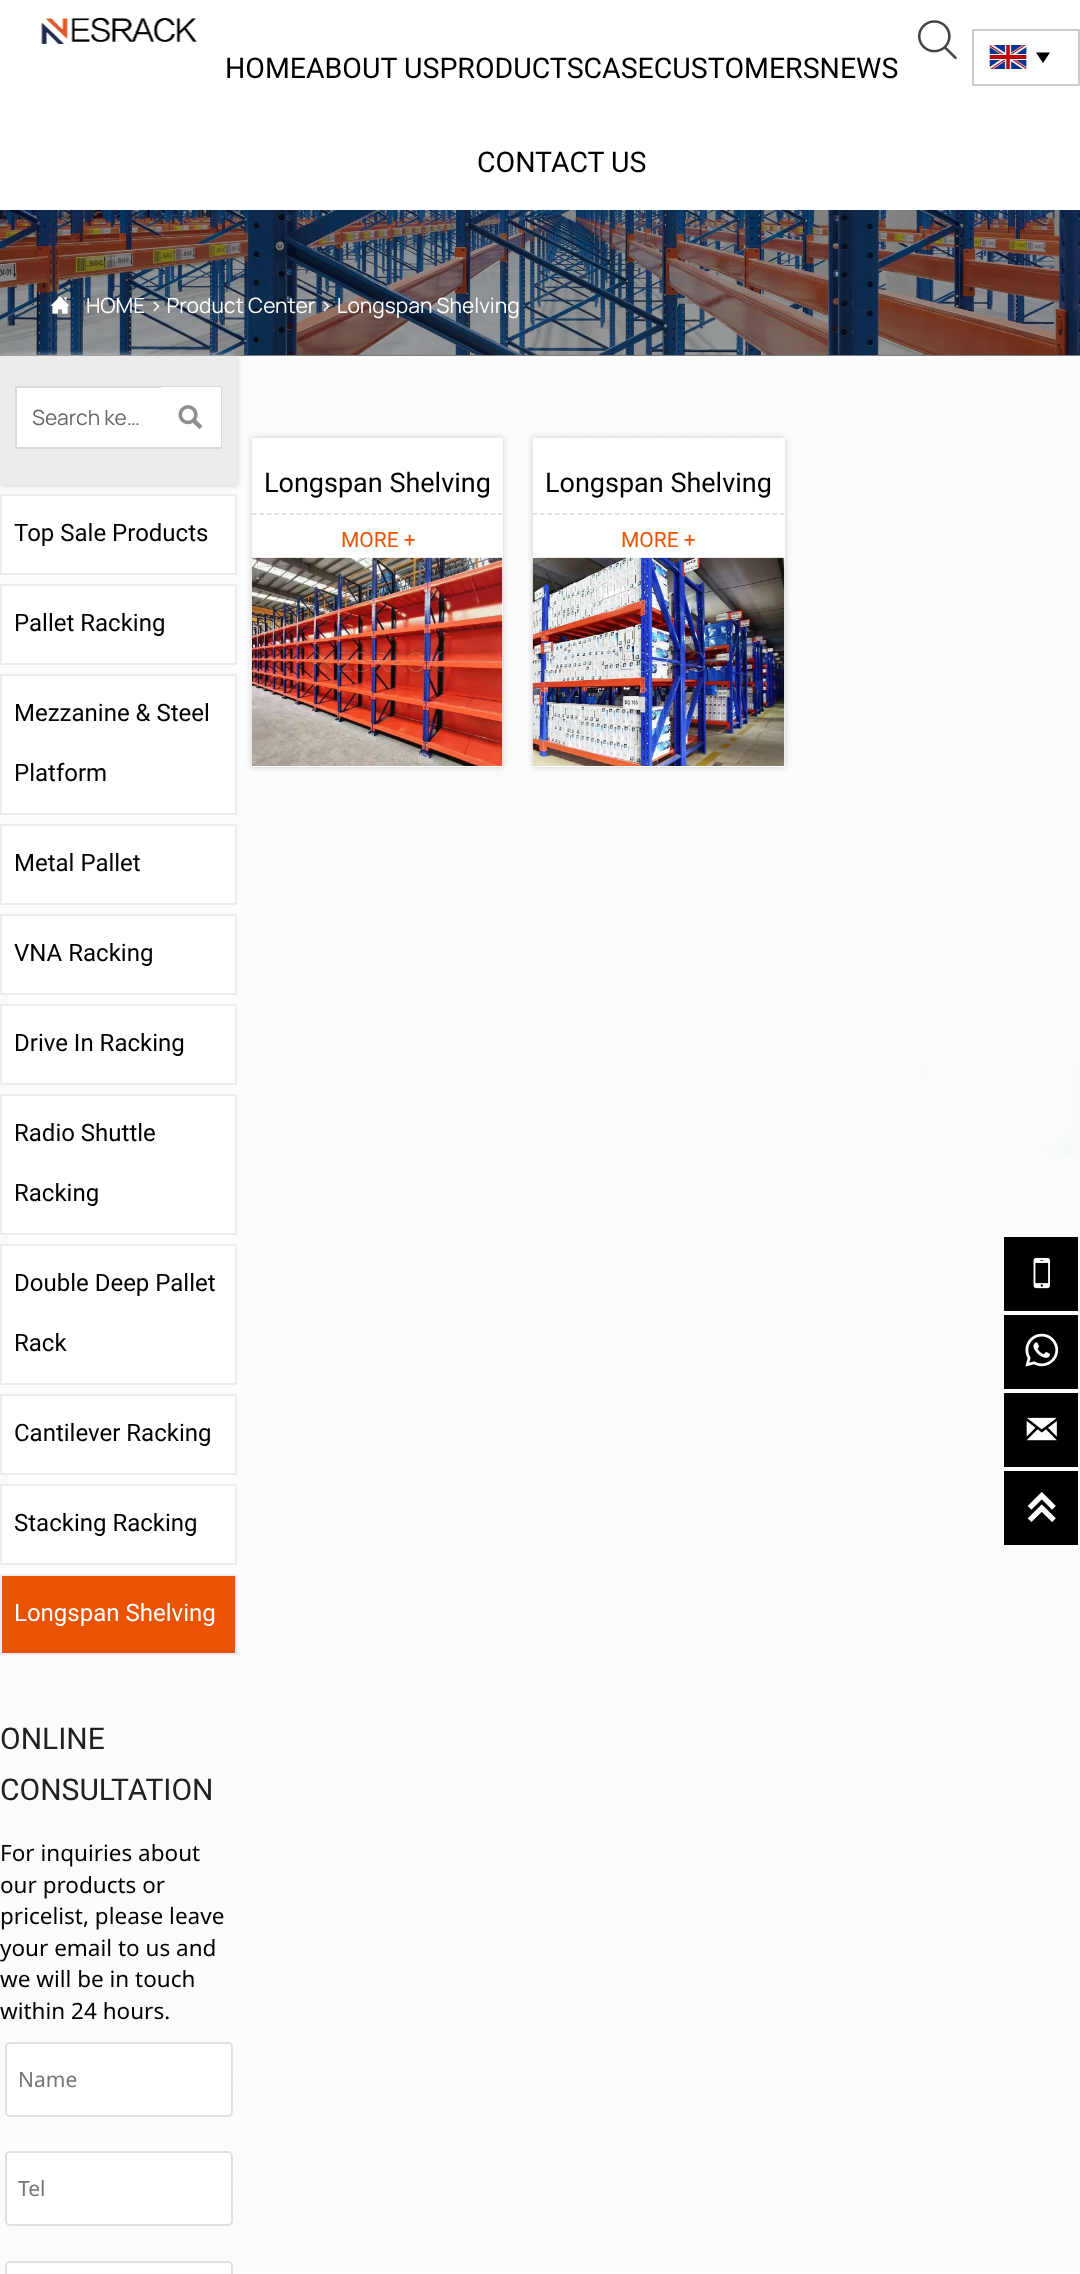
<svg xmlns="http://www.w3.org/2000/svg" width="1080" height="2274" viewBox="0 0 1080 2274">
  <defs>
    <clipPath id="clip1"><path d="M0 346H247V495H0ZM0 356H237V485H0Z" clip-rule="evenodd"/></clipPath>
  </defs>
  <rect width="100%" height="100%" fill="#fff"/>
  <image x="41" y="17" width="156" height="27" href="img/1.png"/>
  <image x="918" y="20" width="39" height="39" href="img/2.png"/>
  <path d="M973 30h106v55H973z" fill="none" stroke="#ccc" stroke-width="2"/>
  <image x="989" y="45" width="38" height="24" href="img/3.png"/>
  <path d="M1043 63L1036 52.5H1050Z" fill="#000"/>
  <path d="M0 210h1080v146H0z" fill="#000"/>
  <image x="0" y="210" width="1080" height="145" href="img/4.png"/>
  <image x="50" y="296" width="20" height="18" href="img/5.png"/>
  <image x="0" y="355" width="1080" height="1918" href="img/6.png"/>
  <g clip-path="url(#clip1)">
    <path d="M0 356h237v129H0z" fill="#ccc" filter="blur(3px)"/>
  </g>
  <path d="M0 356h237v129H0z" fill="#d9d9d973"/>
  <path d="M17 388h144v59H17z" fill="#fff"/>
  <path d="M16 387h205v61H16z" fill="none" stroke="#d9d9d9" stroke-width="2"/>
  <path d="M161 387h60v60H161z" fill="#fff"/>
  <image x="178" y="405" width="25" height="25" href="img/7.png"/>
  <path d="M1 495h235v79H1z" fill="#fff" stroke="#ededed" stroke-width="2"/>
  <path d="M1 585h235v79H1z" fill="#fff" stroke="#ededed" stroke-width="2"/>
  <path d="M1 675h235v139H1z" fill="#fff" stroke="#ededed" stroke-width="2"/>
  <path d="M1 825h235v79H1z" fill="#fff" stroke="#ededed" stroke-width="2"/>
  <path d="M1 915h235v79H1z" fill="#fff" stroke="#ededed" stroke-width="2"/>
  <path d="M1 1005h235v79H1z" fill="#fff" stroke="#ededed" stroke-width="2"/>
  <path d="M1 1095h235v139H1z" fill="#fff" stroke="#ededed" stroke-width="2"/>
  <path d="M1 1245h235v139H1z" fill="#fff" stroke="#ededed" stroke-width="2"/>
  <path d="M1 1395h235v79H1z" fill="#fff" stroke="#ededed" stroke-width="2"/>
  <path d="M1 1485h235v79H1z" fill="#fff" stroke="#ededed" stroke-width="2"/>
  <path d="M1 1575h235v79H1z" fill="#e95302" stroke="#ededed" stroke-width="2"/>
  <rect x="6" y="2043" width="226" height="73" rx="4" fill="#fff" stroke="#e0e0e0" stroke-width="2"/>
  <rect x="6" y="2152" width="226" height="73" rx="4" fill="#fff" stroke="#e0e0e0" stroke-width="2"/>
  <rect x="6" y="2262" width="226" height="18" rx="4" fill="#fff" stroke="#e0e0e0" stroke-width="2"/>
  <path d="M252 438h251v329H252z" fill="#ccc" filter="blur(3px)"/>
  <path d="M252 438h251v329H252z" fill="#fff"/>
  <path d="M252 514H502.5" fill="none" stroke="#d9d9d9" stroke-width="1.5" stroke-dasharray="4.5 2.96"/>
  <image x="252" y="557" width="251" height="209" href="img/8.png"/>
  <path d="M533 438h252v329H533z" fill="#ccc" filter="blur(3px)"/>
  <path d="M533 438h252v329H533z" fill="#fff"/>
  <path d="M532.5 514H784.5" fill="none" stroke="#d9d9d9" stroke-width="1.5" stroke-dasharray="4.5 3"/>
  <image x="532" y="557" width="253" height="209" href="img/9.png"/>
  <path d="M1003 1236h76v76H1003z" fill="#000" stroke="#fff" stroke-width="2"/>
  <image x="1033" y="1257" width="17" height="32" href="img/10.png"/>
  <path d="M1003 1314h76v76H1003z" fill="#000" stroke="#fff" stroke-width="2"/>
  <image x="1025" y="1333" width="34" height="34" href="img/11.png"/>
  <path d="M1003 1392h76v76H1003z" fill="#000" stroke="#fff" stroke-width="2"/>
  <image x="1026" y="1417" width="31" height="24" href="img/12.png"/>
  <path d="M1003 1470h76v76H1003z" fill="#000" stroke="#fff" stroke-width="2"/>
  <image x="1027" y="1492" width="29" height="30" href="img/13.png"/>
  <g font-family="Roboto" font-size="28.5" fill="#000">
    <text x="225" y="78">HOMEABOUT USPRODUCTSCASECUSTOMERSNEWS</text>
    <text x="477" y="172">CONTACT US</text>
  </g>
  <text x="86" y="313" font-family="Manrope" font-size="21" fill="#fff">HOME &gt; Product Center &gt; Longspan Shelving</text>
  <text x="32" y="425" font-family="Manrope" font-size="21" fill="#666">Search ke…</text>
  <g font-family="Roboto" font-size="24" fill="#000">
    <text x="14" y="541">Top Sale Products</text>
    <text x="14" y="631">Pallet Racking</text>
    <text x="14" y="721">Mezzanine &amp; Steel</text>
    <text x="14" y="781">Platform</text>
    <text x="14" y="871">Metal Pallet</text>
    <text x="14" y="961">VNA Racking</text>
    <text x="14" y="1051">Drive In Racking</text>
    <text x="14" y="1141">Radio Shuttle</text>
    <text x="14" y="1201">Racking</text>
    <text x="14" y="1291">Double Deep Pallet</text>
    <text x="14" y="1351">Rack</text>
    <text x="14" y="1441">Cantilever Racking</text>
    <text x="14" y="1531">Stacking Racking</text>
  </g>
  <text x="14" y="1621" font-family="Roboto" font-size="24" fill="#fff">Longspan Shelving</text>
  <g font-family="Roboto" font-size="30" fill="#212121">
    <text x="0" y="1749">ONLINE</text>
    <text x="0" y="1800">CONSULTATION</text>
  </g>
  <g font-family="Noto Sans" font-size="22.5" fill="#000">
    <text x="0" y="1861">For inquiries about</text>
    <text x="0" y="1893">our products or</text>
    <text x="0" y="1924">pricelist, please leave</text>
    <text x="0" y="1956">your email to us and</text>
    <text x="0" y="1987">we will be in touch</text>
    <text x="0" y="2019">within 24 hours.</text>
  </g>
  <g font-family="Noto Sans" font-size="21" fill="#757575">
    <text x="18" y="2087">Name</text>
    <text x="18" y="2196">Tel</text>
  </g>
  <text x="264" y="492" font-family="Roboto" font-size="27" fill="#000">Longspan Shelving</text>
  <text x="341" y="547" font-family="Roboto" font-size="21" fill="#e95302">MORE +</text>
  <text x="545" y="492" font-family="Roboto" font-size="27" fill="#000">Longspan Shelving</text>
  <text x="621" y="547" font-family="Roboto" font-size="21" fill="#e95302">MORE +</text>
</svg>
